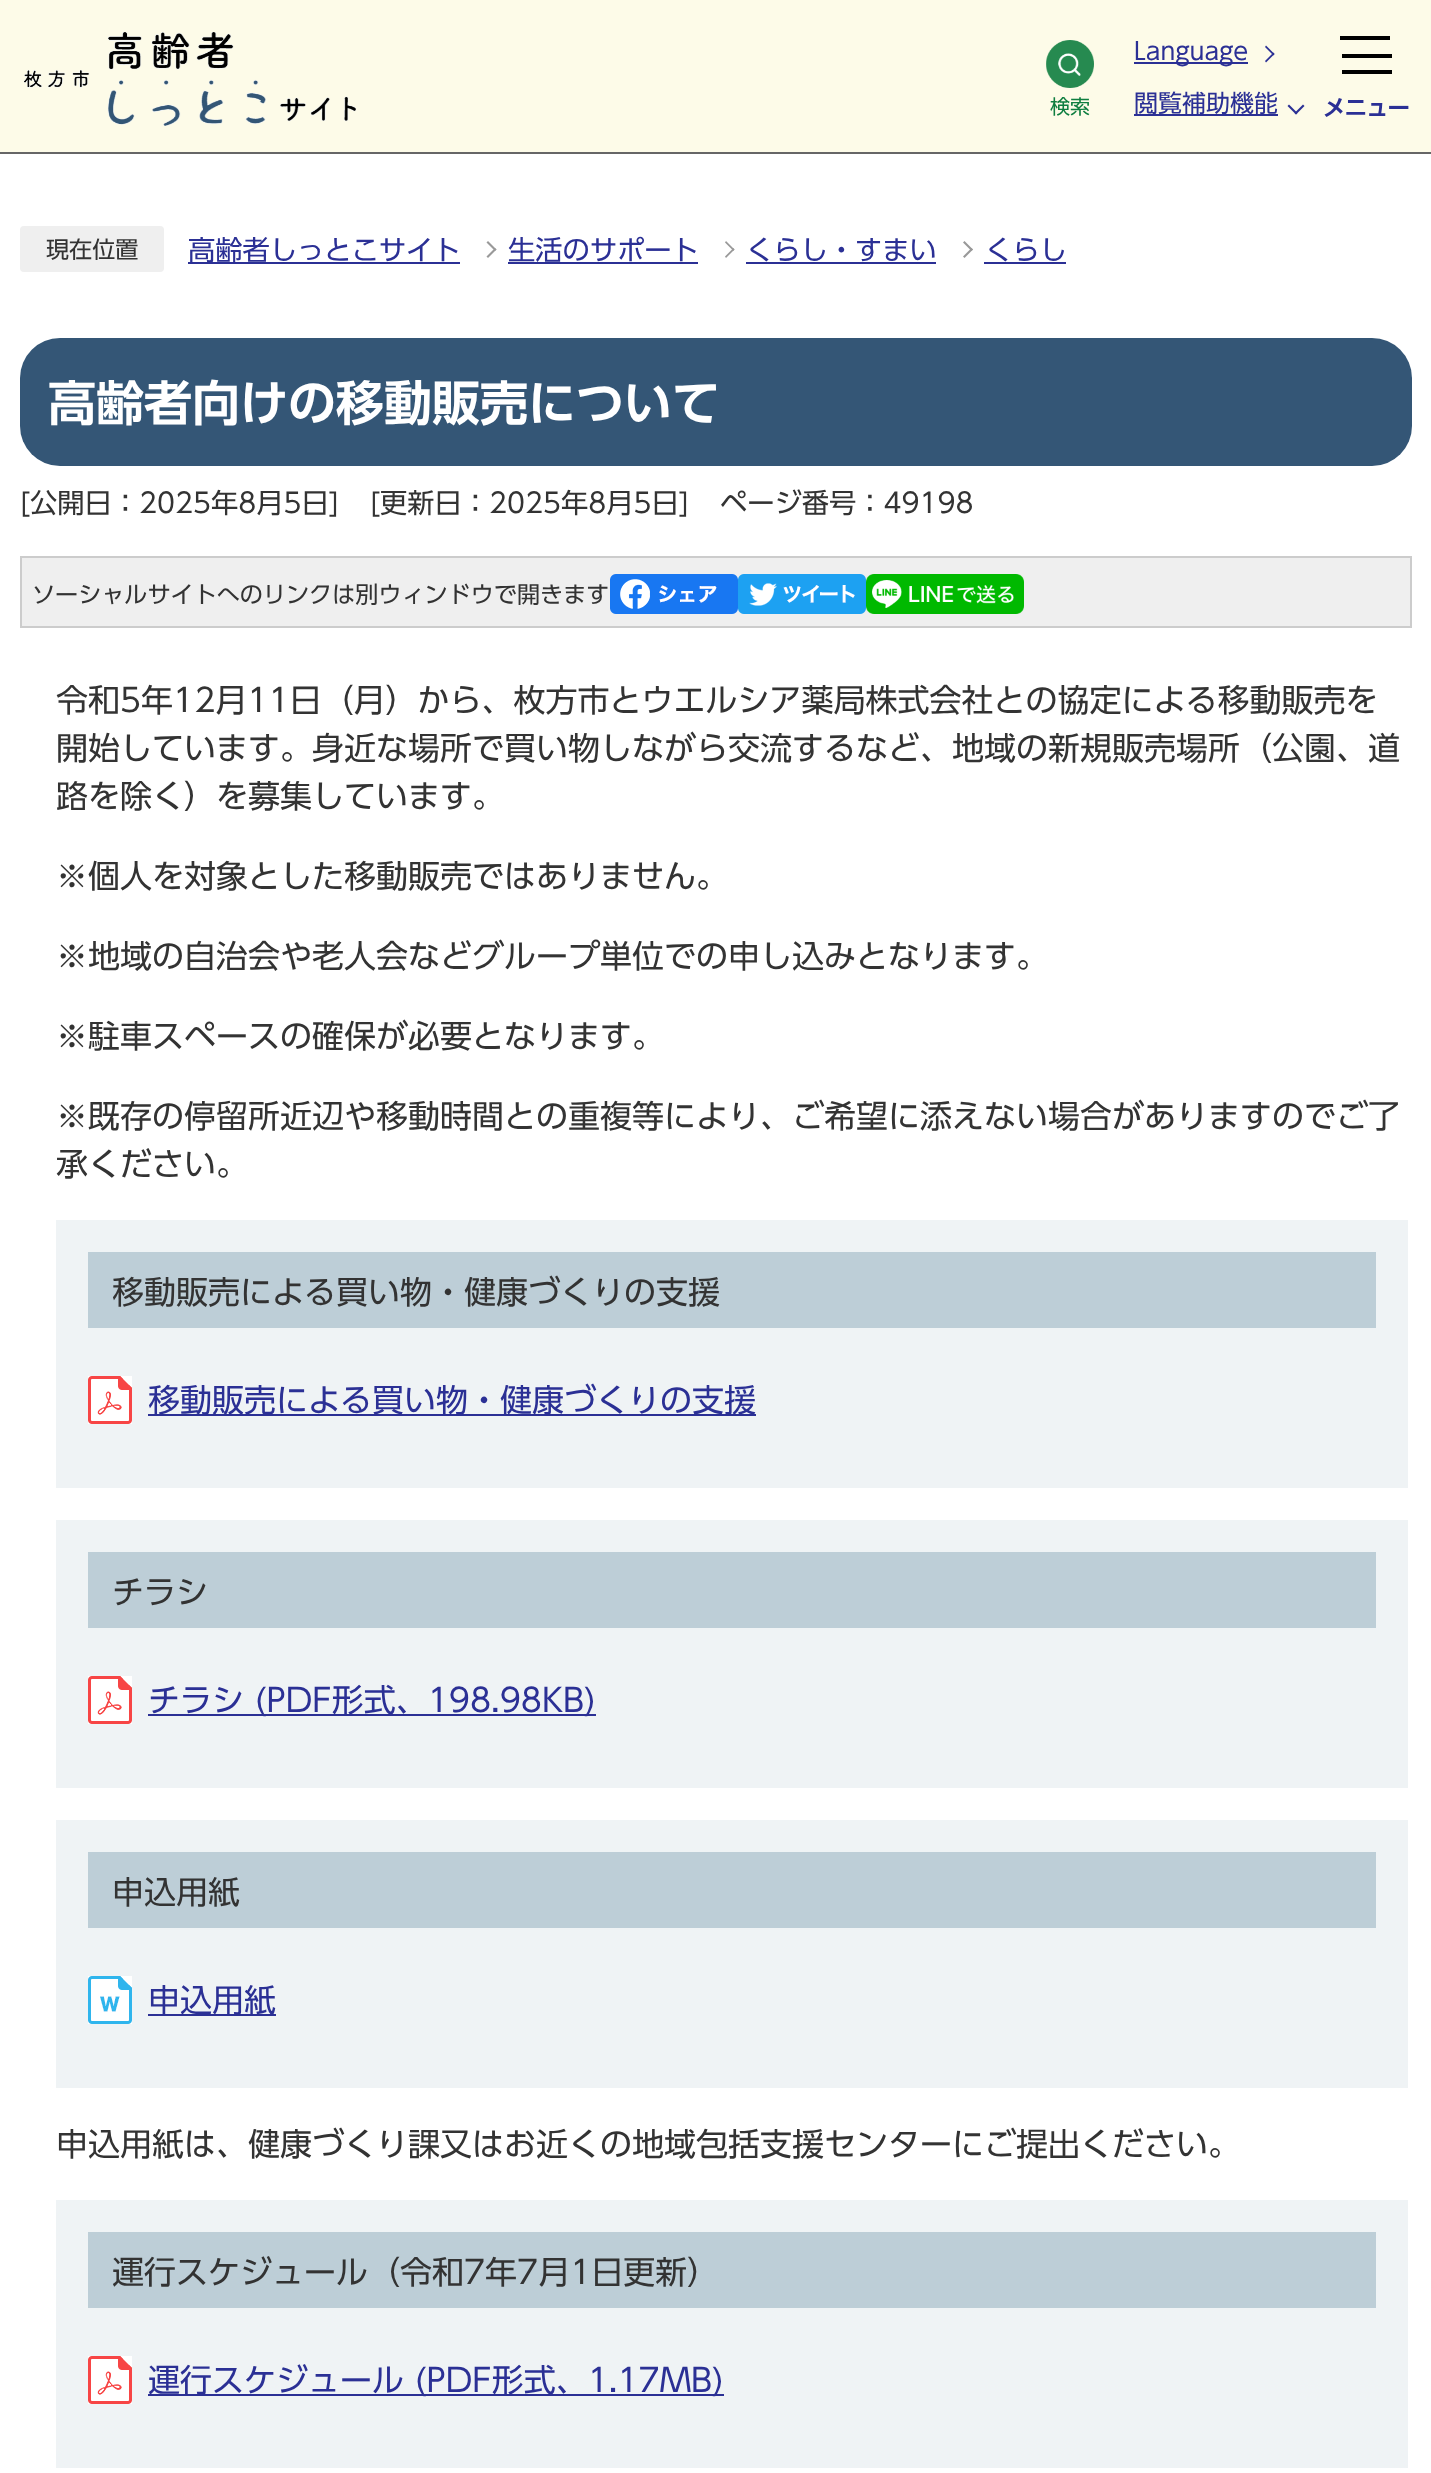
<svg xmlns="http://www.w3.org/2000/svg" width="1431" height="2473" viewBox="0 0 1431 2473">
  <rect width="100%" height="100%" fill="#fff"/>
  <path d="M0 152h1431v2H0z" fill="#666"/>
  <path d="M0 0h1431v152H0z" fill="#fdfbe8"/>
  <image x="24" y="32" width="332" height="94" href="img/1.png"/>
  <image x="1046" y="40" width="48" height="48" href="img/2.png"/>
  <path d="M1134 62h114v2H1134z" fill="#2b3095"/>
  <path d="M1265 47L1266 45.5L1274.5 54L1273.5 55.5Z" fill="#2b3095"/>
  <path d="M1265 61L1273.5 52.5L1274.5 54L1266 62.5Z" fill="#2b3095"/>
  <path d="M1134 114h144v2H1134z" fill="#2b3095"/>
  <path d="M1303 104.5L1304.5 106L1296 114.5L1294.5 113Z" fill="#2b3095"/>
  <path d="M1289 104.5L1297.5 113L1296 114.5L1287.5 106Z" fill="#2b3095"/>
  <path d="M1340 36h50v4H1340z" fill="#000"/>
  <path d="M1342 54h50v4H1342z" fill="#000"/>
  <path d="M1342 70h50v4H1342z" fill="#000"/>
  <rect x="20" y="226" width="144" height="46" rx="4" fill="#efefef"/>
  <path d="M188 262h272v2H188z" fill="#2b3095"/>
  <path d="M486.5 242.5L488 241L496.5 249.5L495 251Z" fill="#999"/>
  <path d="M486.5 256.5L495 248L496.5 249.5L488 258Z" fill="#999"/>
  <path d="M508 262h190v2H508z" fill="#2b3095"/>
  <path d="M725 242.5L726 241L734.5 249.5L733.5 251Z" fill="#999"/>
  <path d="M725 256.5L733.5 248L734.5 249.5L726 258Z" fill="#999"/>
  <path d="M746 262h190v2H746z" fill="#2b3095"/>
  <path d="M963 242.5L964.5 241L973 249.5L971.5 251Z" fill="#999"/>
  <path d="M963 256.5L971.5 248L973 249.5L964.5 258Z" fill="#999"/>
  <path d="M984 262h82v2H984z" fill="#2b3095"/>
  <rect x="20" y="338" width="1392" height="128" rx="40" fill="#345676"/>
  <path d="M21 557h1390v70H21z" fill="#efefef" stroke="#ccc" stroke-width="2"/>
  <image x="610" y="574" width="128" height="40" href="img/3.png"/>
  <image x="738" y="574" width="128" height="40" href="img/4.png"/>
  <image x="866" y="574" width="158" height="40" href="img/5.png"/>
  <path d="M56 1220h1352v268H56z" fill="#eff3f5"/>
  <path d="M88 1252h1288v76H88z" fill="#bdced7"/>
  <image x="88" y="1376" width="44" height="48" href="img/6.png"/>
  <path d="M148 1414h608v2H148z" fill="#2b3095"/>
  <path d="M56 1520h1352v268H56z" fill="#eff3f5"/>
  <path d="M88 1552h1288v76H88z" fill="#bdced7"/>
  <image x="88" y="1676" width="44" height="48" href="img/6.png"/>
  <path d="M148 1714h448v2H148z" fill="#2b3095"/>
  <path d="M56 1820h1352v268H56z" fill="#eff3f5"/>
  <path d="M88 1852h1288v76H88z" fill="#bdced7"/>
  <image x="88" y="1976" width="44" height="48" href="img/7.png"/>
  <path d="M148 2014h128v2H148z" fill="#2b3095"/>
  <path d="M56 2200h1352v268H56z" fill="#eff3f5"/>
  <path d="M88 2232h1288v76H88z" fill="#bdced7"/>
  <image x="88" y="2356" width="44" height="48" href="img/6.png"/>
  <path d="M148 2394h576v2H148z" fill="#2b3095"/>
  <text x="1050" y="114" font-family="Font" font-size="20" fill="#0f7e40">検索</text>
  <g font-family="Font" font-size="24" fill="#2b3095">
    <text x="1134" y="60">Language</text>
    <text x="1134" y="112">閲覧補助機能</text>
  </g>
  <text x="1323" y="116" font-family="Font" font-size="22.5" font-weight="600" letter-spacing="-1" fill="#2b3095">メニュー</text>
  <text x="46" y="258" font-family="Font" font-size="23.1" fill="#333">現在位置</text>
  <g font-family="Font" font-size="27.25" fill="#2b3095">
    <text x="188" y="260">高齢者しっとこサイト</text>
    <text x="508" y="260">生活のサポート</text>
    <text x="746" y="260">くらし・すまい</text>
    <text x="985" y="260">くらし</text>
  </g>
  <text x="48" y="421" font-family="Font" font-size="48" font-weight="600" fill="#fff">高齢者向けの移動販売について</text>
  <g font-family="Font" font-size="27.25" fill="#333">
    <text x="20" y="513">[公開日：2025年8月5日]</text>
    <text x="370" y="513">[更新日：2025年8月5日]</text>
    <text x="720" y="513">ページ番号：49198</text>
  </g>
  <text x="32" y="603" font-family="Font" font-size="23.1" fill="#333">ソーシャルサイトへのリンクは別ウィンドウで開きます</text>
  <g font-family="Font" font-size="32" fill="#333">
    <text x="56" y="712">令和5年12月11日（月）から、枚方市とウエルシア薬局株式会社との協定による移動販売を</text>
    <text x="56" y="760">開始しています。身近な場所で買い物しながら交流するなど、地域の新規販売場所（公園、道</text>
    <text x="56" y="808">路を除く）を募集しています。</text>
    <text x="56" y="888">※個人を対象とした移動販売ではありません。</text>
    <text x="56" y="968">※地域の自治会や老人会などグループ単位での申し込みとなります。</text>
    <text x="56" y="1048">※駐車スペースの確保が必要となります。</text>
    <text x="56" y="1128">※既存の停留所近辺や移動時間との重複等により、ご希望に添えない場合がありますのでご了</text>
    <text x="56" y="1176">承ください。</text>
    <text x="112" y="1304">移動販売による買い物・健康づくりの支援</text>
  </g>
  <text x="148" y="1412" font-family="Font" font-size="32" fill="#2b3095">移動販売による買い物・健康づくりの支援</text>
  <text x="112" y="1604" font-family="Font" font-size="32" fill="#333">チラシ</text>
  <text x="148" y="1712" font-family="Font" font-size="32" fill="#2b3095">チラシ (PDF形式、198.98KB)</text>
  <text x="112" y="1904" font-family="Font" font-size="32" fill="#333">申込用紙</text>
  <text x="148" y="2012" font-family="Font" font-size="32" fill="#2b3095">申込用紙</text>
  <g font-family="Font" font-size="32" fill="#333">
    <text x="56" y="2156">申込用紙は、健康づくり課又はお近くの地域包括支援センターにご提出ください。</text>
    <text x="112" y="2284">運行スケジュール（令和7年7月1日更新）</text>
  </g>
  <text x="148" y="2392" font-family="Font" font-size="32" fill="#2b3095">運行スケジュール (PDF形式、1.17MB)</text>
</svg>
